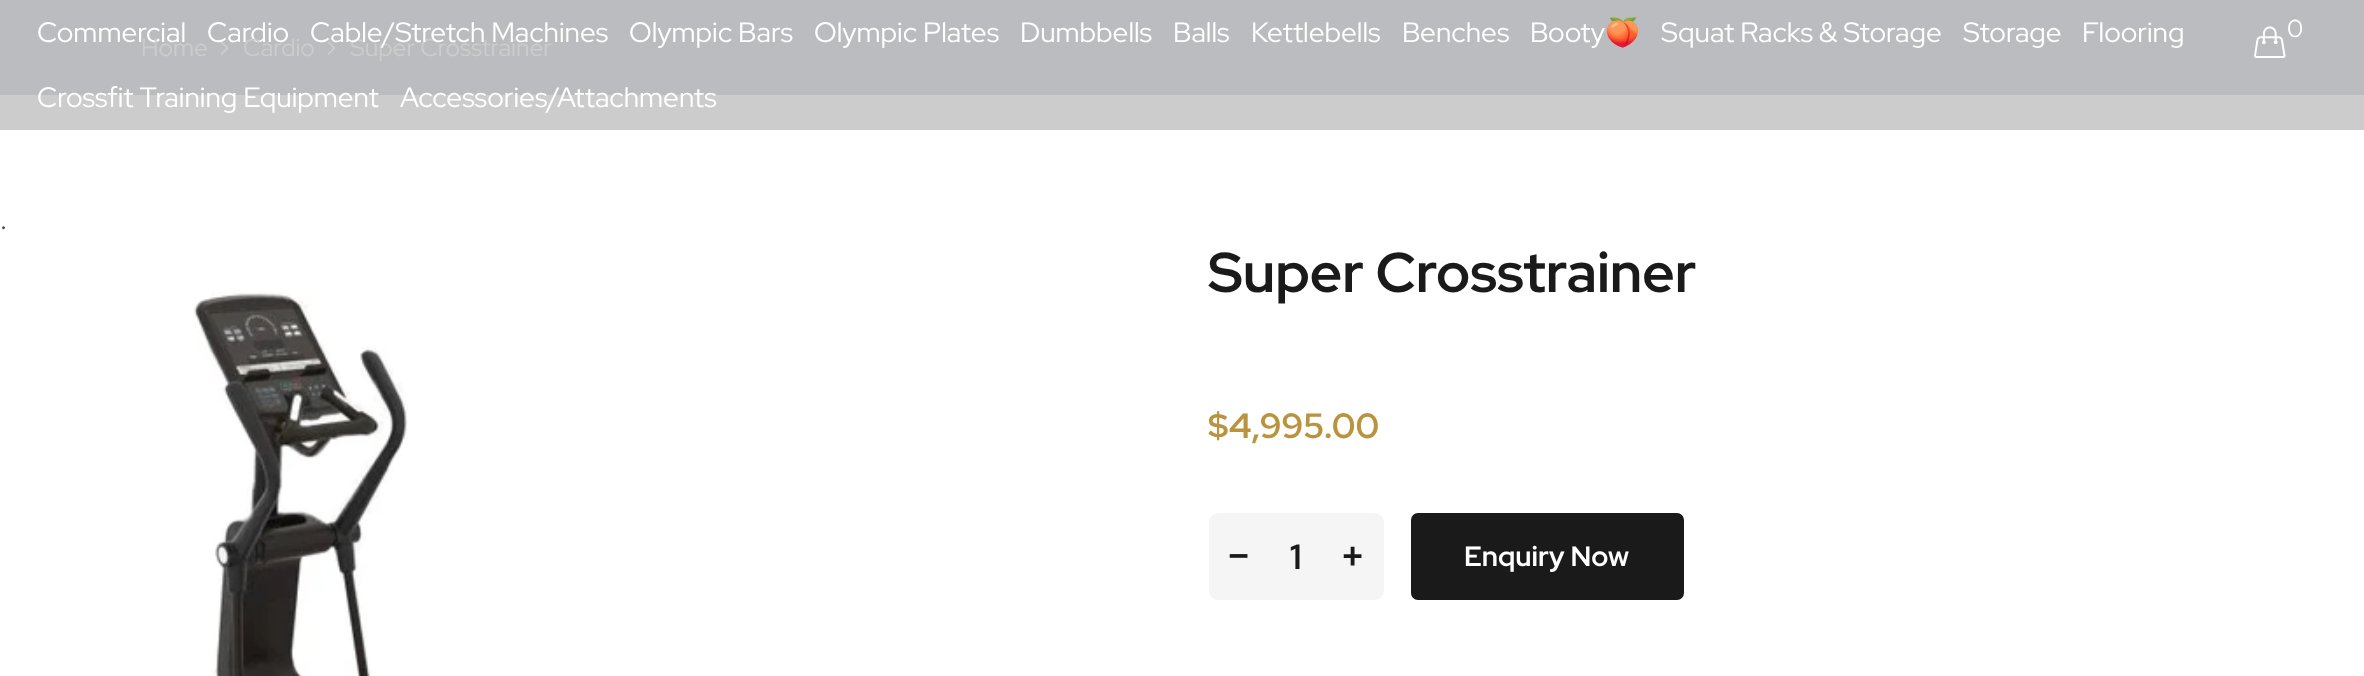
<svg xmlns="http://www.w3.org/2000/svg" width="2364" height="676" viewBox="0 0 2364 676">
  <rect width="100%" height="100%" fill="#fff"/>
  <path d="M0 95h2364v35H0z" fill="#ccc"/>
  <path d="M0 0h2364v95H0z" fill="#bbbcbf"/>
  <image x="2254" y="26" width="32" height="32" href="img/1.png"/>
  <image x="220" y="41" width="9" height="14" href="img/2.png"/>
  <image x="327" y="41" width="8" height="14" href="img/3.png"/>
  <image x="193" y="291" width="215" height="385" href="img/4.png"/>
  <rect x="1209" y="513" width="175" height="87" rx="9" fill="#f5f5f5"/>
  <rect x="1412" y="514" width="271" height="85" rx="6" fill="#1a1a1a" stroke="#1a1a1a" stroke-width="2"/>
  <g font-family="Red Hat Display" font-size="28" fill="#fff">
    <text x="37" y="42">Commercial</text>
    <text x="207" y="42">Cardio</text>
    <text x="629" y="42">Olympic Bars</text>
    <text x="814" y="42">Olympic Plates</text>
    <text x="1020" y="42">Dumbbells</text>
    <text x="1173" y="42">Balls</text>
    <text x="1251" y="42">Kettlebells</text>
    <text x="1402" y="42">Benches</text>
    <text x="1530" y="42">Booty</text>
  </g>
  <text x="1605" y="42" font-family="Noto Color Emoji" font-size="28" fill="#fff">🍑</text>
  <g font-family="Red Hat Display" font-size="28" fill="#fff">
    <text x="1661" y="42">Squat Racks &amp; Storage</text>
    <text x="1963" y="42">Storage</text>
    <text x="2082" y="42">Flooring</text>
    <text x="37" y="107">Crossfit Training Equipment</text>
    <text x="400" y="107">Accessories/Attachments</text>
  </g>
  <text x="2287" y="37" font-family="Red Hat Display" font-size="24.5" fill="#fff">0</text>
  <g font-family="Red Hat Display" font-size="24.5" fill="#ccc">
    <text x="141" y="56">Home</text>
    <text x="243" y="56">Cardio</text>
    <text x="350" y="56">Super Crosstrainer</text>
  </g>
  <text x="310" y="42" font-family="Red Hat Display" font-size="28" fill="#fff">Cable/Stretch Machines</text>
  <text x="0" y="229" font-family="Red Hat Display" font-size="28" fill="#444">.</text>
  <text x="1208" y="292" font-family="Red Hat Display" font-size="56" font-weight="bold" fill="#1a1a1a">Super Crosstrainer</text>
  <text x="1208" y="438" font-family="Red Hat Display" font-size="35" font-weight="bold" fill="#ba933e">$4,995.00</text>
  <text x="1226" y="571" font-family="Red Hat Display" font-size="42" font-weight="bold" fill="#1a1a1a">−</text>
  <text x="1290" y="569" font-family="Red Hat Display" font-size="35" font-weight="bold" fill="#1a1a1a">1</text>
  <text x="1340" y="571" font-family="Red Hat Display" font-size="42" font-weight="bold" fill="#1a1a1a">+</text>
  <text x="1464" y="566" font-family="Red Hat Display" font-size="28" font-weight="bold" fill="#fff">Enquiry Now</text>
</svg>
